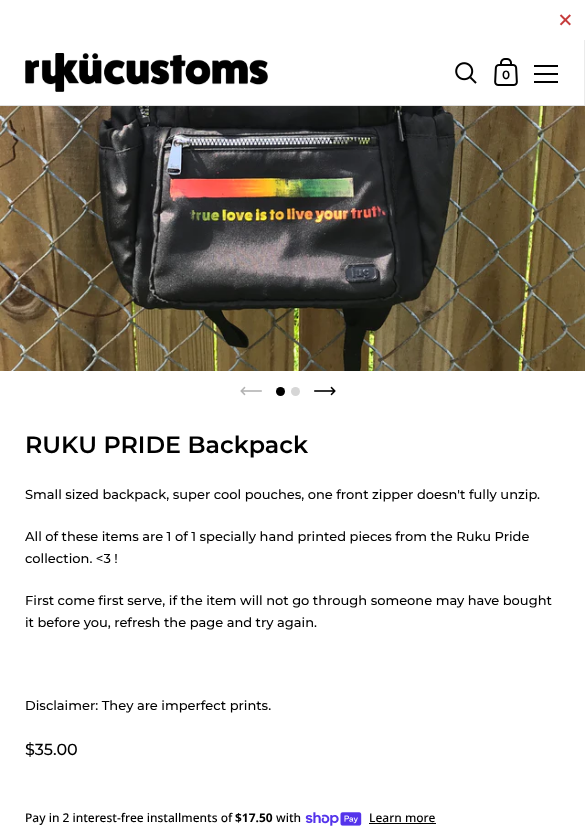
<svg xmlns="http://www.w3.org/2000/svg" width="585" height="839" viewBox="0 0 585 839">
  <rect width="100%" height="100%" fill="#fff"/>
  <image x="559" y="14" width="12" height="12" href="img/1.png"/>
  <path d="M0 105h585v1H0z" fill="#e0e0e0"/>
  <path d="M584 40h1v65H584z" fill="#ebebeb"/>
  <image x="25" y="53" width="243" height="39" href="img/2.png"/>
  <image x="455" y="62" width="22" height="22" href="img/3.png"/>
  <image x="494" y="58" width="24" height="28" href="img/4.png"/>
  <path d="M534 65h24v2H534z" fill="#000"/>
  <path d="M534 73h24v2H534z" fill="#000"/>
  <path d="M534 81h24v2H534z" fill="#000"/>
  <image x="0" y="106" width="585" height="265" href="img/5.png"/>
  <image x="240" y="386" width="22" height="10" href="img/6.png"/>
  <circle cx="280.5" cy="391.5" r="4.5" fill="#000"/>
  <circle cx="295.5" cy="391.5" r="4.5" fill="#d6d6d6"/>
  <image x="314" y="386" width="22" height="10" href="img/7.png"/>
  <image x="305" y="812" width="57" height="14" href="img/8.png"/>
  <path d="M369 823h67v1H369z" fill="#000"/>
  <text x="502" y="79" font-family="Montserrat" font-size="12" font-weight="600" fill="#000">0</text>
  <text x="25" y="453" font-family="Montserrat" font-size="23.75" font-weight="600" fill="#000">RUKU PRIDE Backpack</text>
  <g font-family="Montserrat" font-size="13" font-weight="500" fill="#000">
    <text x="25" y="499">Small sized backpack, super cool pouches, one front zipper doesn't fully unzip.</text>
    <text x="25" y="541">All of these items are 1 of 1 specially hand printed pieces from the Ruku Pride</text>
    <text x="25" y="563">collection. &lt;3 !</text>
    <text x="25" y="605">First come first serve, if the item will not go through someone may have bought</text>
    <text x="25" y="627">it before you, refresh the page and try again.</text>
    <text x="25" y="710">Disclaimer: They are imperfect prints.</text>
  </g>
  <text x="25" y="755" font-family="Montserrat" font-size="16" font-weight="500" fill="#000">$35.00</text>
  <text x="25" y="822" font-family="Noto Sans" font-size="12" font-weight="500" fill="#000">Pay in 2 interest-free installments of</text>
  <text x="235" y="822" font-family="Noto Sans" font-size="12" font-weight="bold" fill="#000">$17.50</text>
  <g font-family="Noto Sans" font-size="12" font-weight="500" fill="#000">
    <text x="276" y="822">with</text>
    <text x="369" y="822">Learn more</text>
  </g>
</svg>
